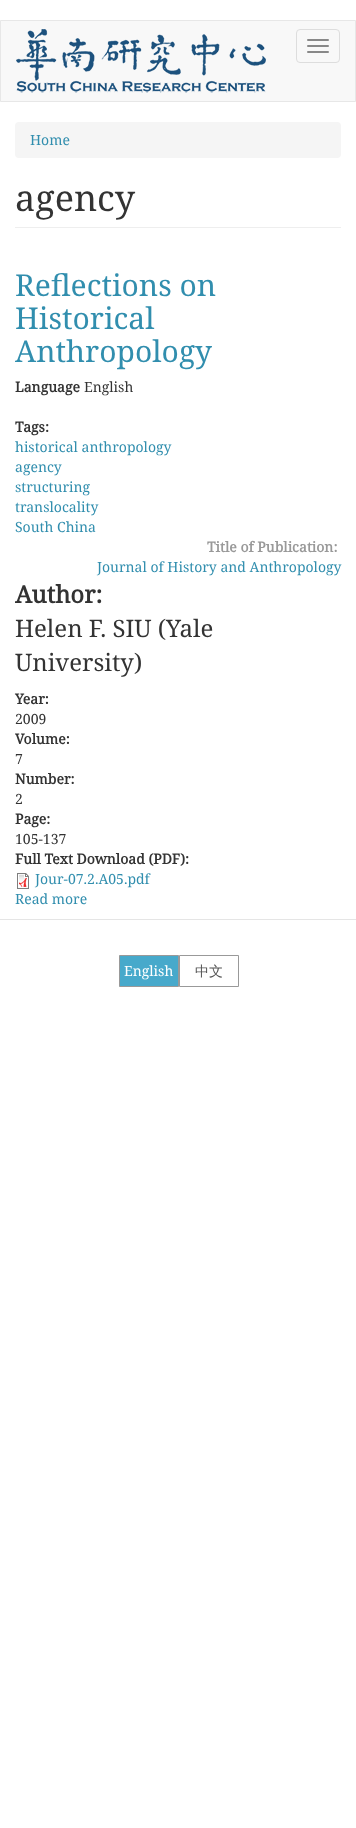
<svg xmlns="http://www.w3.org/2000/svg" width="356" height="1828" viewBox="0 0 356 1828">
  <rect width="100%" height="100%" fill="#fff"/>
  <path d="M0.5 20.5h355v81H0.5z" fill="#f8f8f8" stroke="#e7e7e7"/>
  <image x="16" y="29" width="250" height="64" href="img/1.png"/>
  <rect x="296.5" y="29.5" width="43" height="33" rx="3.5" fill="none" stroke="#ddd"/>
  <rect x="307" y="39" width="22" height="2" rx="1" fill="#888"/>
  <rect x="307" y="45" width="22" height="2" rx="1" fill="#888"/>
  <rect x="307" y="51" width="22" height="2" rx="1" fill="#888"/>
  <rect x="15" y="122" width="326" height="36" rx="4" fill="#f5f5f5"/>
  <path d="M15 227h326v1H15z" fill="#eee"/>
  <image x="17" y="873" width="12" height="16" href="img/2.png"/>
  <path d="M0 919h356v1H0z" fill="#e5e5e5"/>
  <path d="M119.5 955.5h59v31H119.5z" fill="#47a9cb" stroke="#999"/>
  <path d="M179.5 955.5h59v31H179.5z" fill="none" stroke="#999"/>
  <text x="30" y="145" font-family="Noto Serif" font-size="14" fill="#318eae">Home</text>
  <text x="15" y="211" font-family="Noto Serif" font-size="36" fill="#333">agency</text>
  <g font-family="Noto Serif" font-size="30" fill="#318eae">
    <text x="15" y="296">Reflections on</text>
    <text x="15" y="329">Historical</text>
    <text x="15" y="362">Anthropology</text>
  </g>
  <text x="15" y="392" font-family="Noto Serif" font-size="14" font-weight="bold" fill="#333">Language</text>
  <text x="84" y="392" font-family="Noto Serif" font-size="14" fill="#333">English</text>
  <text x="15" y="432" font-family="Noto Serif" font-size="14" font-weight="bold" fill="#333">Tags:</text>
  <g font-family="Noto Serif" font-size="14" fill="#318eae">
    <text x="15" y="452">historical anthropology</text>
    <text x="15" y="472">agency</text>
    <text x="15" y="492">structuring</text>
    <text x="15" y="512">translocality</text>
    <text x="15" y="532">South China</text>
  </g>
  <text x="207" y="552" font-family="Noto Serif" font-size="14" font-weight="bold" fill="#999">Title of Publication:</text>
  <text x="97" y="572" font-family="Noto Serif" font-size="14" fill="#318eae">Journal of History and Anthropology</text>
  <text x="15" y="603" font-family="Noto Serif" font-size="24" font-weight="bold" fill="#333">Author:</text>
  <g font-family="Noto Serif" font-size="24" fill="#333">
    <text x="15" y="637">Helen F. SIU (Yale</text>
    <text x="15" y="671">University)</text>
  </g>
  <text x="15" y="704" font-family="Noto Serif" font-size="14" font-weight="bold" fill="#333">Year:</text>
  <text x="15" y="724" font-family="Noto Serif" font-size="14" fill="#333">2009</text>
  <text x="15" y="744" font-family="Noto Serif" font-size="14" font-weight="bold" fill="#333">Volume:</text>
  <text x="15" y="764" font-family="Noto Serif" font-size="14" fill="#333">7</text>
  <text x="15" y="784" font-family="Noto Serif" font-size="14" font-weight="bold" fill="#333">Number:</text>
  <text x="15" y="804" font-family="Noto Serif" font-size="14" fill="#333">2</text>
  <text x="15" y="824" font-family="Noto Serif" font-size="14" font-weight="bold" fill="#333">Page:</text>
  <text x="15" y="844" font-family="Noto Serif" font-size="14" fill="#333">105-137</text>
  <text x="15" y="864" font-family="Noto Serif" font-size="14" font-weight="bold" fill="#333">Full Text Download (PDF):</text>
  <g font-family="Noto Serif" font-size="14" fill="#318eae">
    <text x="35" y="884">Jour-07.2.A05.pdf</text>
    <text x="15" y="904">Read more</text>
  </g>
  <text x="124" y="976" font-family="Noto Serif" font-size="14" fill="#fff">English</text>
  <text x="195" y="976" font-family="WenQuanYi Zen Hei" font-size="14" font-weight="500" fill="#555">中文</text>
</svg>
